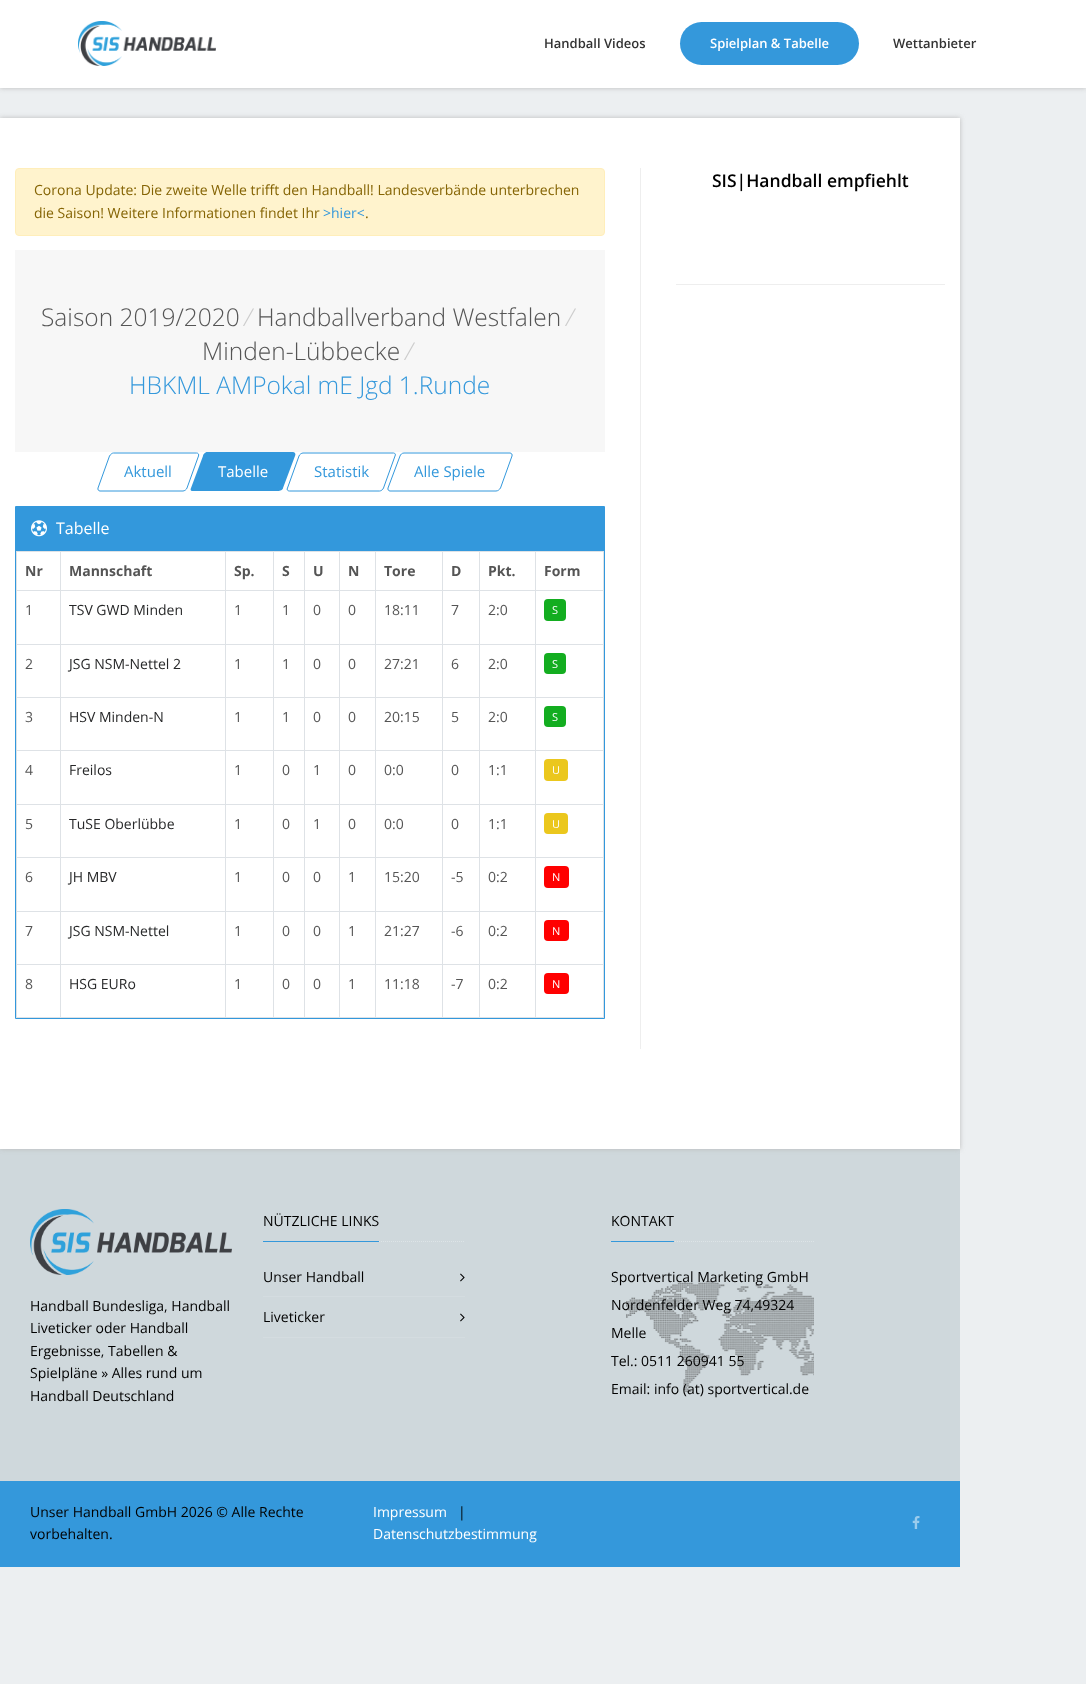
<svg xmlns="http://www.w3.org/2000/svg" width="1086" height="1684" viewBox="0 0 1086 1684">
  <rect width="100%" height="100%" fill="#eceff1"/>
  <path d="M0 0h1086v88H0z" fill="#bbb" filter="blur(2.5px)"/>
  <path d="M0 0h1086v88H0z" fill="#fff"/>
  <image x="78" y="21" width="138" height="45" href="img/1.png"/>
  <rect x="680" y="22" width="179" height="43" rx="21.5" fill="#3498db"/>
  <path d="M0 1149h960v332H0z" fill="#cfd8dc"/>
  <path d="M0 118h960v1031H0z" fill="#bbb" filter="blur(2.5px)"/>
  <path d="M0 118h960v1031H0z" fill="#fff"/>
  <rect x="15.5" y="168.5" width="589" height="67" rx="3.5" fill="#fff3cd" stroke="#ffeeba"/>
  <path d="M15 250h590v202H15z" fill="#f7f7f7"/>
  <path d="M113.5 453H196.5C198.5 453 199 454.5 198.5 456L187 488C186.5 489.5 184.5 491 183 491H100C98.5 491 97.5 489.5 98 488L109.5 456C110.5 454.5 112 453 113.5 453Z" fill="none" stroke="#3398dc"/>
  <path d="M207 452H293C295 452 296 454 295 456L283 488C283 490 280 491 278 491H193C191 491 190 490 191 488L203 456C203 454 206 452 207 452Z" fill="#3398dc"/>
  <path d="M303 453H393.5C395 453 396 454.5 395 456L383.5 488C383 489.5 381 491 379.5 491H289.5C287.5 491 286.5 489.5 287.5 488L299 456C299.5 454.5 301.5 453 303 453Z" fill="none" stroke="#3398dc"/>
  <path d="M404 453H510C511.5 453 512.5 454.5 512 456L500.5 488C499.5 489.5 498 491 496 491H390C388.5 491 387.5 489.5 388 488L400 456C400.5 454.5 402 453 404 453Z" fill="none" stroke="#3398dc"/>
  <path d="M15.5 506.5h589v512H15.5z" fill="none" stroke="#3398dc"/>
  <path d="M16 507h588v44H16z" fill="#3398dc"/>
  <image x="31" y="520" width="16" height="17" href="img/2.png"/>
  <path d="M535 551h69v1H535z" fill="#dee2e6"/>
  <path d="M535 590h69v1H535z" fill="#dee2e6"/>
  <path d="M535 644h69v1H535z" fill="#dee2e6"/>
  <path d="M535 697h69v1H535z" fill="#dee2e6"/>
  <path d="M535 750h69v1H535z" fill="#dee2e6"/>
  <path d="M535 804h69v1H535z" fill="#dee2e6"/>
  <path d="M535 857h69v1H535z" fill="#dee2e6"/>
  <path d="M535 911h69v1H535z" fill="#dee2e6"/>
  <path d="M535 964h69v1H535z" fill="#dee2e6"/>
  <path d="M603 964h1v54H603z" fill="#dee2e6"/>
  <path d="M535 1017h69v1H535z" fill="#dee2e6"/>
  <path d="M535 964h1v54H535z" fill="#dee2e6"/>
  <path d="M479 964h57v1H479z" fill="#dee2e6"/>
  <path d="M535 911h1v54H535z" fill="#dee2e6"/>
  <path d="M479 911h57v1H479z" fill="#dee2e6"/>
  <path d="M535 857h1v55H535z" fill="#dee2e6"/>
  <path d="M479 857h57v1H479z" fill="#dee2e6"/>
  <path d="M535 804h1v54H535z" fill="#dee2e6"/>
  <path d="M479 804h57v1H479z" fill="#dee2e6"/>
  <path d="M535 750h1v55H535z" fill="#dee2e6"/>
  <path d="M479 750h57v1H479z" fill="#dee2e6"/>
  <path d="M535 697h1v54H535z" fill="#dee2e6"/>
  <path d="M479 697h57v1H479z" fill="#dee2e6"/>
  <path d="M535 644h1v54H535z" fill="#dee2e6"/>
  <path d="M479 644h57v1H479z" fill="#dee2e6"/>
  <path d="M535 590h1v55H535z" fill="#dee2e6"/>
  <path d="M479 590h57v1H479z" fill="#dee2e6"/>
  <path d="M535 551h1v40H535z" fill="#dee2e6"/>
  <path d="M479 551h57v1H479z" fill="#dee2e6"/>
  <path d="M479 1017h57v1H479z" fill="#dee2e6"/>
  <path d="M479 964h1v54H479z" fill="#dee2e6"/>
  <path d="M442 964h38v1H442z" fill="#dee2e6"/>
  <path d="M479 911h1v54H479z" fill="#dee2e6"/>
  <path d="M442 911h38v1H442z" fill="#dee2e6"/>
  <path d="M479 857h1v55H479z" fill="#dee2e6"/>
  <path d="M442 857h38v1H442z" fill="#dee2e6"/>
  <path d="M479 804h1v54H479z" fill="#dee2e6"/>
  <path d="M442 804h38v1H442z" fill="#dee2e6"/>
  <path d="M479 750h1v55H479z" fill="#dee2e6"/>
  <path d="M442 750h38v1H442z" fill="#dee2e6"/>
  <path d="M479 697h1v54H479z" fill="#dee2e6"/>
  <path d="M442 697h38v1H442z" fill="#dee2e6"/>
  <path d="M479 644h1v54H479z" fill="#dee2e6"/>
  <path d="M442 644h38v1H442z" fill="#dee2e6"/>
  <path d="M479 590h1v55H479z" fill="#dee2e6"/>
  <path d="M442 590h38v1H442z" fill="#dee2e6"/>
  <path d="M479 551h1v40H479z" fill="#dee2e6"/>
  <path d="M442 551h38v1H442z" fill="#dee2e6"/>
  <path d="M442 1017h38v1H442z" fill="#dee2e6"/>
  <path d="M442 964h1v54H442z" fill="#dee2e6"/>
  <path d="M375 964h68v1H375z" fill="#dee2e6"/>
  <path d="M442 911h1v54H442z" fill="#dee2e6"/>
  <path d="M375 911h68v1H375z" fill="#dee2e6"/>
  <path d="M442 857h1v55H442z" fill="#dee2e6"/>
  <path d="M375 857h68v1H375z" fill="#dee2e6"/>
  <path d="M442 804h1v54H442z" fill="#dee2e6"/>
  <path d="M375 804h68v1H375z" fill="#dee2e6"/>
  <path d="M442 750h1v55H442z" fill="#dee2e6"/>
  <path d="M375 750h68v1H375z" fill="#dee2e6"/>
  <path d="M442 697h1v54H442z" fill="#dee2e6"/>
  <path d="M375 697h68v1H375z" fill="#dee2e6"/>
  <path d="M442 644h1v54H442z" fill="#dee2e6"/>
  <path d="M375 644h68v1H375z" fill="#dee2e6"/>
  <path d="M442 590h1v55H442z" fill="#dee2e6"/>
  <path d="M375 590h68v1H375z" fill="#dee2e6"/>
  <path d="M442 551h1v40H442z" fill="#dee2e6"/>
  <path d="M375 551h68v1H375z" fill="#dee2e6"/>
  <path d="M375 1017h68v1H375z" fill="#dee2e6"/>
  <path d="M375 964h1v54H375z" fill="#dee2e6"/>
  <path d="M339 964h37v1H339z" fill="#dee2e6"/>
  <path d="M375 911h1v54H375z" fill="#dee2e6"/>
  <path d="M339 911h37v1H339z" fill="#dee2e6"/>
  <path d="M375 857h1v55H375z" fill="#dee2e6"/>
  <path d="M339 857h37v1H339z" fill="#dee2e6"/>
  <path d="M375 804h1v54H375z" fill="#dee2e6"/>
  <path d="M339 804h37v1H339z" fill="#dee2e6"/>
  <path d="M375 750h1v55H375z" fill="#dee2e6"/>
  <path d="M339 750h37v1H339z" fill="#dee2e6"/>
  <path d="M375 697h1v54H375z" fill="#dee2e6"/>
  <path d="M339 697h37v1H339z" fill="#dee2e6"/>
  <path d="M375 644h1v54H375z" fill="#dee2e6"/>
  <path d="M339 644h37v1H339z" fill="#dee2e6"/>
  <path d="M375 590h1v55H375z" fill="#dee2e6"/>
  <path d="M339 590h37v1H339z" fill="#dee2e6"/>
  <path d="M375 551h1v40H375z" fill="#dee2e6"/>
  <path d="M339 551h37v1H339z" fill="#dee2e6"/>
  <path d="M339 1017h37v1H339z" fill="#dee2e6"/>
  <path d="M339 964h1v54H339z" fill="#dee2e6"/>
  <path d="M304 964h36v1H304z" fill="#dee2e6"/>
  <path d="M339 911h1v54H339z" fill="#dee2e6"/>
  <path d="M304 911h36v1H304z" fill="#dee2e6"/>
  <path d="M339 857h1v55H339z" fill="#dee2e6"/>
  <path d="M304 857h36v1H304z" fill="#dee2e6"/>
  <path d="M339 804h1v54H339z" fill="#dee2e6"/>
  <path d="M304 804h36v1H304z" fill="#dee2e6"/>
  <path d="M339 750h1v55H339z" fill="#dee2e6"/>
  <path d="M304 750h36v1H304z" fill="#dee2e6"/>
  <path d="M339 697h1v54H339z" fill="#dee2e6"/>
  <path d="M304 697h36v1H304z" fill="#dee2e6"/>
  <path d="M339 644h1v54H339z" fill="#dee2e6"/>
  <path d="M304 644h36v1H304z" fill="#dee2e6"/>
  <path d="M339 590h1v55H339z" fill="#dee2e6"/>
  <path d="M304 590h36v1H304z" fill="#dee2e6"/>
  <path d="M339 551h1v40H339z" fill="#dee2e6"/>
  <path d="M304 551h36v1H304z" fill="#dee2e6"/>
  <path d="M304 1017h36v1H304z" fill="#dee2e6"/>
  <path d="M304 964h1v54H304z" fill="#dee2e6"/>
  <path d="M273 964h32v1H273z" fill="#dee2e6"/>
  <path d="M304 911h1v54H304z" fill="#dee2e6"/>
  <path d="M273 911h32v1H273z" fill="#dee2e6"/>
  <path d="M304 857h1v55H304z" fill="#dee2e6"/>
  <path d="M273 857h32v1H273z" fill="#dee2e6"/>
  <path d="M304 804h1v54H304z" fill="#dee2e6"/>
  <path d="M273 804h32v1H273z" fill="#dee2e6"/>
  <path d="M304 750h1v55H304z" fill="#dee2e6"/>
  <path d="M273 750h32v1H273z" fill="#dee2e6"/>
  <path d="M304 697h1v54H304z" fill="#dee2e6"/>
  <path d="M273 697h32v1H273z" fill="#dee2e6"/>
  <path d="M304 644h1v54H304z" fill="#dee2e6"/>
  <path d="M273 644h32v1H273z" fill="#dee2e6"/>
  <path d="M304 590h1v55H304z" fill="#dee2e6"/>
  <path d="M273 590h32v1H273z" fill="#dee2e6"/>
  <path d="M304 551h1v40H304z" fill="#dee2e6"/>
  <path d="M273 551h32v1H273z" fill="#dee2e6"/>
  <path d="M273 1017h32v1H273z" fill="#dee2e6"/>
  <path d="M273 964h1v54H273z" fill="#dee2e6"/>
  <path d="M225 964h49v1H225z" fill="#dee2e6"/>
  <path d="M273 911h1v54H273z" fill="#dee2e6"/>
  <path d="M225 911h49v1H225z" fill="#dee2e6"/>
  <path d="M273 857h1v55H273z" fill="#dee2e6"/>
  <path d="M225 857h49v1H225z" fill="#dee2e6"/>
  <path d="M273 804h1v54H273z" fill="#dee2e6"/>
  <path d="M225 804h49v1H225z" fill="#dee2e6"/>
  <path d="M273 750h1v55H273z" fill="#dee2e6"/>
  <path d="M225 750h49v1H225z" fill="#dee2e6"/>
  <path d="M273 697h1v54H273z" fill="#dee2e6"/>
  <path d="M225 697h49v1H225z" fill="#dee2e6"/>
  <path d="M273 644h1v54H273z" fill="#dee2e6"/>
  <path d="M225 644h49v1H225z" fill="#dee2e6"/>
  <path d="M273 590h1v55H273z" fill="#dee2e6"/>
  <path d="M225 590h49v1H225z" fill="#dee2e6"/>
  <path d="M273 551h1v40H273z" fill="#dee2e6"/>
  <path d="M225 551h49v1H225z" fill="#dee2e6"/>
  <path d="M225 1017h49v1H225z" fill="#dee2e6"/>
  <path d="M225 964h1v54H225z" fill="#dee2e6"/>
  <path d="M60 964h166v1H60z" fill="#dee2e6"/>
  <path d="M225 911h1v54H225z" fill="#dee2e6"/>
  <path d="M60 911h166v1H60z" fill="#dee2e6"/>
  <path d="M225 857h1v55H225z" fill="#dee2e6"/>
  <path d="M60 857h166v1H60z" fill="#dee2e6"/>
  <path d="M225 804h1v54H225z" fill="#dee2e6"/>
  <path d="M60 804h166v1H60z" fill="#dee2e6"/>
  <path d="M225 750h1v55H225z" fill="#dee2e6"/>
  <path d="M60 750h166v1H60z" fill="#dee2e6"/>
  <path d="M225 697h1v54H225z" fill="#dee2e6"/>
  <path d="M60 697h166v1H60z" fill="#dee2e6"/>
  <path d="M225 644h1v54H225z" fill="#dee2e6"/>
  <path d="M60 644h166v1H60z" fill="#dee2e6"/>
  <path d="M225 590h1v55H225z" fill="#dee2e6"/>
  <path d="M60 590h166v1H60z" fill="#dee2e6"/>
  <path d="M225 551h1v40H225z" fill="#dee2e6"/>
  <path d="M60 551h166v1H60z" fill="#dee2e6"/>
  <path d="M60 1017h166v1H60z" fill="#dee2e6"/>
  <path d="M60 964h1v54H60z" fill="#dee2e6"/>
  <path d="M16 964h45v1H16z" fill="#dee2e6"/>
  <path d="M60 911h1v54H60z" fill="#dee2e6"/>
  <path d="M16 911h45v1H16z" fill="#dee2e6"/>
  <path d="M60 857h1v55H60z" fill="#dee2e6"/>
  <path d="M16 857h45v1H16z" fill="#dee2e6"/>
  <path d="M60 804h1v54H60z" fill="#dee2e6"/>
  <path d="M16 804h45v1H16z" fill="#dee2e6"/>
  <path d="M60 750h1v55H60z" fill="#dee2e6"/>
  <path d="M16 750h45v1H16z" fill="#dee2e6"/>
  <path d="M60 697h1v54H60z" fill="#dee2e6"/>
  <path d="M16 697h45v1H16z" fill="#dee2e6"/>
  <path d="M60 644h1v54H60z" fill="#dee2e6"/>
  <path d="M16 644h45v1H16z" fill="#dee2e6"/>
  <path d="M60 590h1v55H60z" fill="#dee2e6"/>
  <path d="M16 590h45v1H16z" fill="#dee2e6"/>
  <path d="M60 551h1v40H60z" fill="#dee2e6"/>
  <path d="M16 551h45v1H16z" fill="#dee2e6"/>
  <path d="M16 1017h45v1H16z" fill="#dee2e6"/>
  <path d="M16 964h1v54H16z" fill="#dee2e6"/>
  <path d="M16 911h1v54H16z" fill="#dee2e6"/>
  <path d="M16 857h1v55H16z" fill="#dee2e6"/>
  <path d="M16 804h1v54H16z" fill="#dee2e6"/>
  <path d="M16 750h1v55H16z" fill="#dee2e6"/>
  <path d="M16 697h1v54H16z" fill="#dee2e6"/>
  <path d="M16 644h1v54H16z" fill="#dee2e6"/>
  <path d="M16 590h1v55H16z" fill="#dee2e6"/>
  <path d="M16 551h1v40H16z" fill="#dee2e6"/>
  <path d="M603 911h1v54H603z" fill="#dee2e6"/>
  <path d="M603 857h1v55H603z" fill="#dee2e6"/>
  <path d="M603 804h1v54H603z" fill="#dee2e6"/>
  <path d="M603 750h1v55H603z" fill="#dee2e6"/>
  <path d="M603 697h1v54H603z" fill="#dee2e6"/>
  <path d="M603 644h1v54H603z" fill="#dee2e6"/>
  <path d="M603 590h1v55H603z" fill="#dee2e6"/>
  <path d="M603 551h1v40H603z" fill="#dee2e6"/>
  <rect x="544" y="599" width="22" height="22" rx="4" fill="#13ad20"/>
  <rect x="544" y="653" width="22" height="21" rx="4" fill="#13ad20"/>
  <rect x="544" y="706" width="22" height="21" rx="4" fill="#13ad20"/>
  <rect x="544" y="759" width="24" height="22" rx="4" fill="#ebc71d"/>
  <rect x="544" y="813" width="24" height="21" rx="4" fill="#ebc71d"/>
  <rect x="544" y="866" width="25" height="22" rx="4" fill="#f00"/>
  <rect x="544" y="920" width="25" height="21" rx="4" fill="#f00"/>
  <rect x="544" y="973" width="25" height="21" rx="4" fill="#f00"/>
  <path d="M640 168h1v881H640z" fill="#eee"/>
  <path d="M676 284h269v1H676z" fill="#eee"/>
  <image x="30" y="1209" width="202" height="66" href="img/3.png"/>
  <path d="M263 1241.5H465" fill="none" stroke="#dde4e7" stroke-dasharray="1 1"/>
  <path d="M263 1241h116v1H263z" fill="#3498db"/>
  <path d="M263 1296h202v1H263z" fill="#d4dce0"/>
  <image x="460" y="1273" width="5" height="9" href="img/4.png"/>
  <path d="M263 1337h202v1H263z" fill="#d4dce0"/>
  <image x="460" y="1313" width="5" height="9" href="img/4.png"/>
  <path d="M611 1241.5H814" fill="none" stroke="#dde4e7" stroke-dasharray="1 1"/>
  <path d="M611 1241h63v1H611z" fill="#3498db"/>
  <image x="626" y="1281" width="188" height="111" href="img/5.png"/>
  <path d="M0 1481h960v86H0z" fill="#3498db"/>
  <image x="912" y="1516" width="8" height="13" href="img/6.png"/>
  <text x="544" y="48" font-family="Open Sans" font-size="13" font-weight="600" fill="#333">Handball Videos</text>
  <text x="710" y="48" font-family="Open Sans" font-size="13" font-weight="600" fill="#fff">Spielplan &amp; Tabelle</text>
  <text x="893" y="48" font-family="Open Sans" font-size="13" font-weight="600" fill="#333">Wettanbieter</text>
  <g font-family="Open Sans" font-size="14" fill="#856404">
    <text x="34" y="195">Corona Update: Die zweite Welle trifft den Handball! Landesverbände unterbrechen</text>
    <text x="34" y="218">die Saison! Weitere Informationen findet Ihr</text>
  </g>
  <text x="323" y="218" font-family="Open Sans" font-size="14" fill="#3498db">&gt;hier&lt;</text>
  <text x="365" y="218" font-family="Open Sans" font-size="14" fill="#856404">.</text>
  <text x="41" y="326" font-family="Open Sans" font-size="24.5" font-weight="300" fill="#555">Saison 2019/2020</text>
  <text x="244" y="326" font-family="Open Sans" font-size="24.5" font-weight="300" font-style="italic" fill="#ccc">/</text>
  <text x="257" y="326" font-family="Open Sans" font-size="24.5" font-weight="300" fill="#555">Handballverband Westfalen</text>
  <text x="566" y="326" font-family="Open Sans" font-size="24.5" font-weight="300" font-style="italic" fill="#ccc">/</text>
  <text x="202" y="360" font-family="Open Sans" font-size="24.5" font-weight="300" fill="#555">Minden-Lübbecke</text>
  <text x="405" y="360" font-family="Open Sans" font-size="24.5" font-weight="300" font-style="italic" fill="#ccc">/</text>
  <text x="129" y="394" font-family="Open Sans" font-size="24.5" font-weight="300" fill="#3498db">HBKML AMPokal mE Jgd 1.Runde</text>
  <text x="124" y="477" font-family="Open Sans" font-size="15" fill="#3498db">Aktuell</text>
  <text x="218" y="477" font-family="Open Sans" font-size="15" fill="#fff">Tabelle</text>
  <g font-family="Open Sans" font-size="15" fill="#3498db">
    <text x="314" y="477">Statistik</text>
    <text x="414" y="477">Alle Spiele</text>
  </g>
  <text x="56" y="534" font-family="Open Sans" font-size="16" fill="#fff">Tabelle</text>
  <g font-family="Open Sans" font-size="14" font-weight="bold" fill="#555">
    <text x="25" y="576">Nr</text>
    <text x="69" y="576">Mannschaft</text>
    <text x="234" y="576">Sp.</text>
    <text x="282" y="576">S</text>
    <text x="313" y="576">U</text>
    <text x="348" y="576">N</text>
    <text x="384" y="576">Tore</text>
    <text x="451" y="576">D</text>
    <text x="488" y="576">Pkt.</text>
    <text x="544" y="576">Form</text>
  </g>
  <text x="25" y="615" font-family="Open Sans" font-size="14" fill="#555">1</text>
  <text x="69" y="615" font-family="Open Sans" font-size="14" fill="#272829">TSV GWD Minden</text>
  <g font-family="Open Sans" font-size="14" fill="#555">
    <text x="234" y="615">1</text>
    <text x="282" y="615">1</text>
    <text x="313" y="615">0</text>
    <text x="348" y="615">0</text>
    <text x="384" y="615">18:11</text>
    <text x="451" y="615">7</text>
    <text x="488" y="615">2:0</text>
  </g>
  <text x="552" y="614" font-family="Open Sans" font-size="11" fill="#fff">S</text>
  <text x="25" y="669" font-family="Open Sans" font-size="14" fill="#555">2</text>
  <text x="69" y="669" font-family="Open Sans" font-size="14" fill="#272829">JSG NSM-Nettel 2</text>
  <g font-family="Open Sans" font-size="14" fill="#555">
    <text x="234" y="669">1</text>
    <text x="282" y="669">1</text>
    <text x="313" y="669">0</text>
    <text x="348" y="669">0</text>
    <text x="384" y="669">27:21</text>
    <text x="451" y="669">6</text>
    <text x="488" y="669">2:0</text>
  </g>
  <text x="552" y="668" font-family="Open Sans" font-size="11" fill="#fff">S</text>
  <text x="25" y="722" font-family="Open Sans" font-size="14" fill="#555">3</text>
  <text x="69" y="722" font-family="Open Sans" font-size="14" fill="#272829">HSV Minden-N</text>
  <g font-family="Open Sans" font-size="14" fill="#555">
    <text x="234" y="722">1</text>
    <text x="282" y="722">1</text>
    <text x="313" y="722">0</text>
    <text x="348" y="722">0</text>
    <text x="384" y="722">20:15</text>
    <text x="451" y="722">5</text>
    <text x="488" y="722">2:0</text>
  </g>
  <text x="552" y="721" font-family="Open Sans" font-size="11" fill="#fff">S</text>
  <text x="25" y="775" font-family="Open Sans" font-size="14" fill="#555">4</text>
  <text x="69" y="775" font-family="Open Sans" font-size="14" fill="#272829">Freilos</text>
  <g font-family="Open Sans" font-size="14" fill="#555">
    <text x="234" y="775">1</text>
    <text x="282" y="775">0</text>
    <text x="313" y="775">1</text>
    <text x="348" y="775">0</text>
    <text x="384" y="775">0:0</text>
    <text x="451" y="775">0</text>
    <text x="488" y="775">1:1</text>
  </g>
  <text x="552" y="774" font-family="Open Sans" font-size="11" fill="#fff">U</text>
  <text x="25" y="829" font-family="Open Sans" font-size="14" fill="#555">5</text>
  <text x="69" y="829" font-family="Open Sans" font-size="14" fill="#272829">TuSE Oberlübbe</text>
  <g font-family="Open Sans" font-size="14" fill="#555">
    <text x="234" y="829">1</text>
    <text x="282" y="829">0</text>
    <text x="313" y="829">1</text>
    <text x="348" y="829">0</text>
    <text x="384" y="829">0:0</text>
    <text x="451" y="829">0</text>
    <text x="488" y="829">1:1</text>
  </g>
  <text x="552" y="828" font-family="Open Sans" font-size="11" fill="#fff">U</text>
  <text x="25" y="882" font-family="Open Sans" font-size="14" fill="#555">6</text>
  <text x="69" y="882" font-family="Open Sans" font-size="14" fill="#272829">JH MBV</text>
  <g font-family="Open Sans" font-size="14" fill="#555">
    <text x="234" y="882">1</text>
    <text x="282" y="882">0</text>
    <text x="313" y="882">0</text>
    <text x="348" y="882">1</text>
    <text x="384" y="882">15:20</text>
    <text x="451" y="882">-5</text>
    <text x="488" y="882">0:2</text>
  </g>
  <text x="552" y="881" font-family="Open Sans" font-size="11" fill="#fff">N</text>
  <text x="25" y="936" font-family="Open Sans" font-size="14" fill="#555">7</text>
  <text x="69" y="936" font-family="Open Sans" font-size="14" fill="#272829">JSG NSM-Nettel</text>
  <g font-family="Open Sans" font-size="14" fill="#555">
    <text x="234" y="936">1</text>
    <text x="282" y="936">0</text>
    <text x="313" y="936">0</text>
    <text x="348" y="936">1</text>
    <text x="384" y="936">21:27</text>
    <text x="451" y="936">-6</text>
    <text x="488" y="936">0:2</text>
  </g>
  <text x="552" y="935" font-family="Open Sans" font-size="11" fill="#fff">N</text>
  <text x="25" y="989" font-family="Open Sans" font-size="14" fill="#555">8</text>
  <text x="69" y="989" font-family="Open Sans" font-size="14" fill="#272829">HSG EURo</text>
  <g font-family="Open Sans" font-size="14" fill="#555">
    <text x="234" y="989">1</text>
    <text x="282" y="989">0</text>
    <text x="313" y="989">0</text>
    <text x="348" y="989">1</text>
    <text x="384" y="989">11:18</text>
    <text x="451" y="989">-7</text>
    <text x="488" y="989">0:2</text>
  </g>
  <text x="552" y="988" font-family="Open Sans" font-size="11" fill="#fff">N</text>
  <text x="712" y="187" font-family="Open Sans" font-size="17.5" font-weight="600" fill="#000">SIS|Handball empfiehlt</text>
  <g font-family="Open Sans" font-size="14" fill="#000">
    <text x="30" y="1311">Handball Bundesliga, Handball</text>
    <text x="30" y="1333">Liveticker oder Handball</text>
    <text x="30" y="1356">Ergebnisse, Tabellen &amp;</text>
    <text x="30" y="1378">Spielpläne » Alles rund um</text>
    <text x="30" y="1401">Handball Deutschland</text>
    <text x="263" y="1226">NÜTZLICHE LINKS</text>
    <text x="263" y="1282">Unser Handball</text>
    <text x="263" y="1322">Liveticker</text>
    <text x="611" y="1226">KONTAKT</text>
    <text x="611" y="1282">Sportvertical Marketing GmbH</text>
    <text x="611" y="1310">Nordenfelder Weg 74,49324</text>
    <text x="611" y="1338">Melle</text>
    <text x="611" y="1366">Tel.: 0511 260941 55</text>
    <text x="611" y="1394">Email: info (at) sportvertical.de</text>
    <text x="30" y="1517">Unser Handball GmbH 2026 © Alle Rechte</text>
    <text x="30" y="1539">vorbehalten.</text>
  </g>
  <text x="373" y="1517" font-family="Open Sans" font-size="14" fill="#fff">Impressum</text>
  <text x="458" y="1517" font-family="Open Sans" font-size="14" fill="#000">|</text>
  <text x="373" y="1539" font-family="Open Sans" font-size="14" fill="#fff">Datenschutzbestimmung</text>
</svg>
